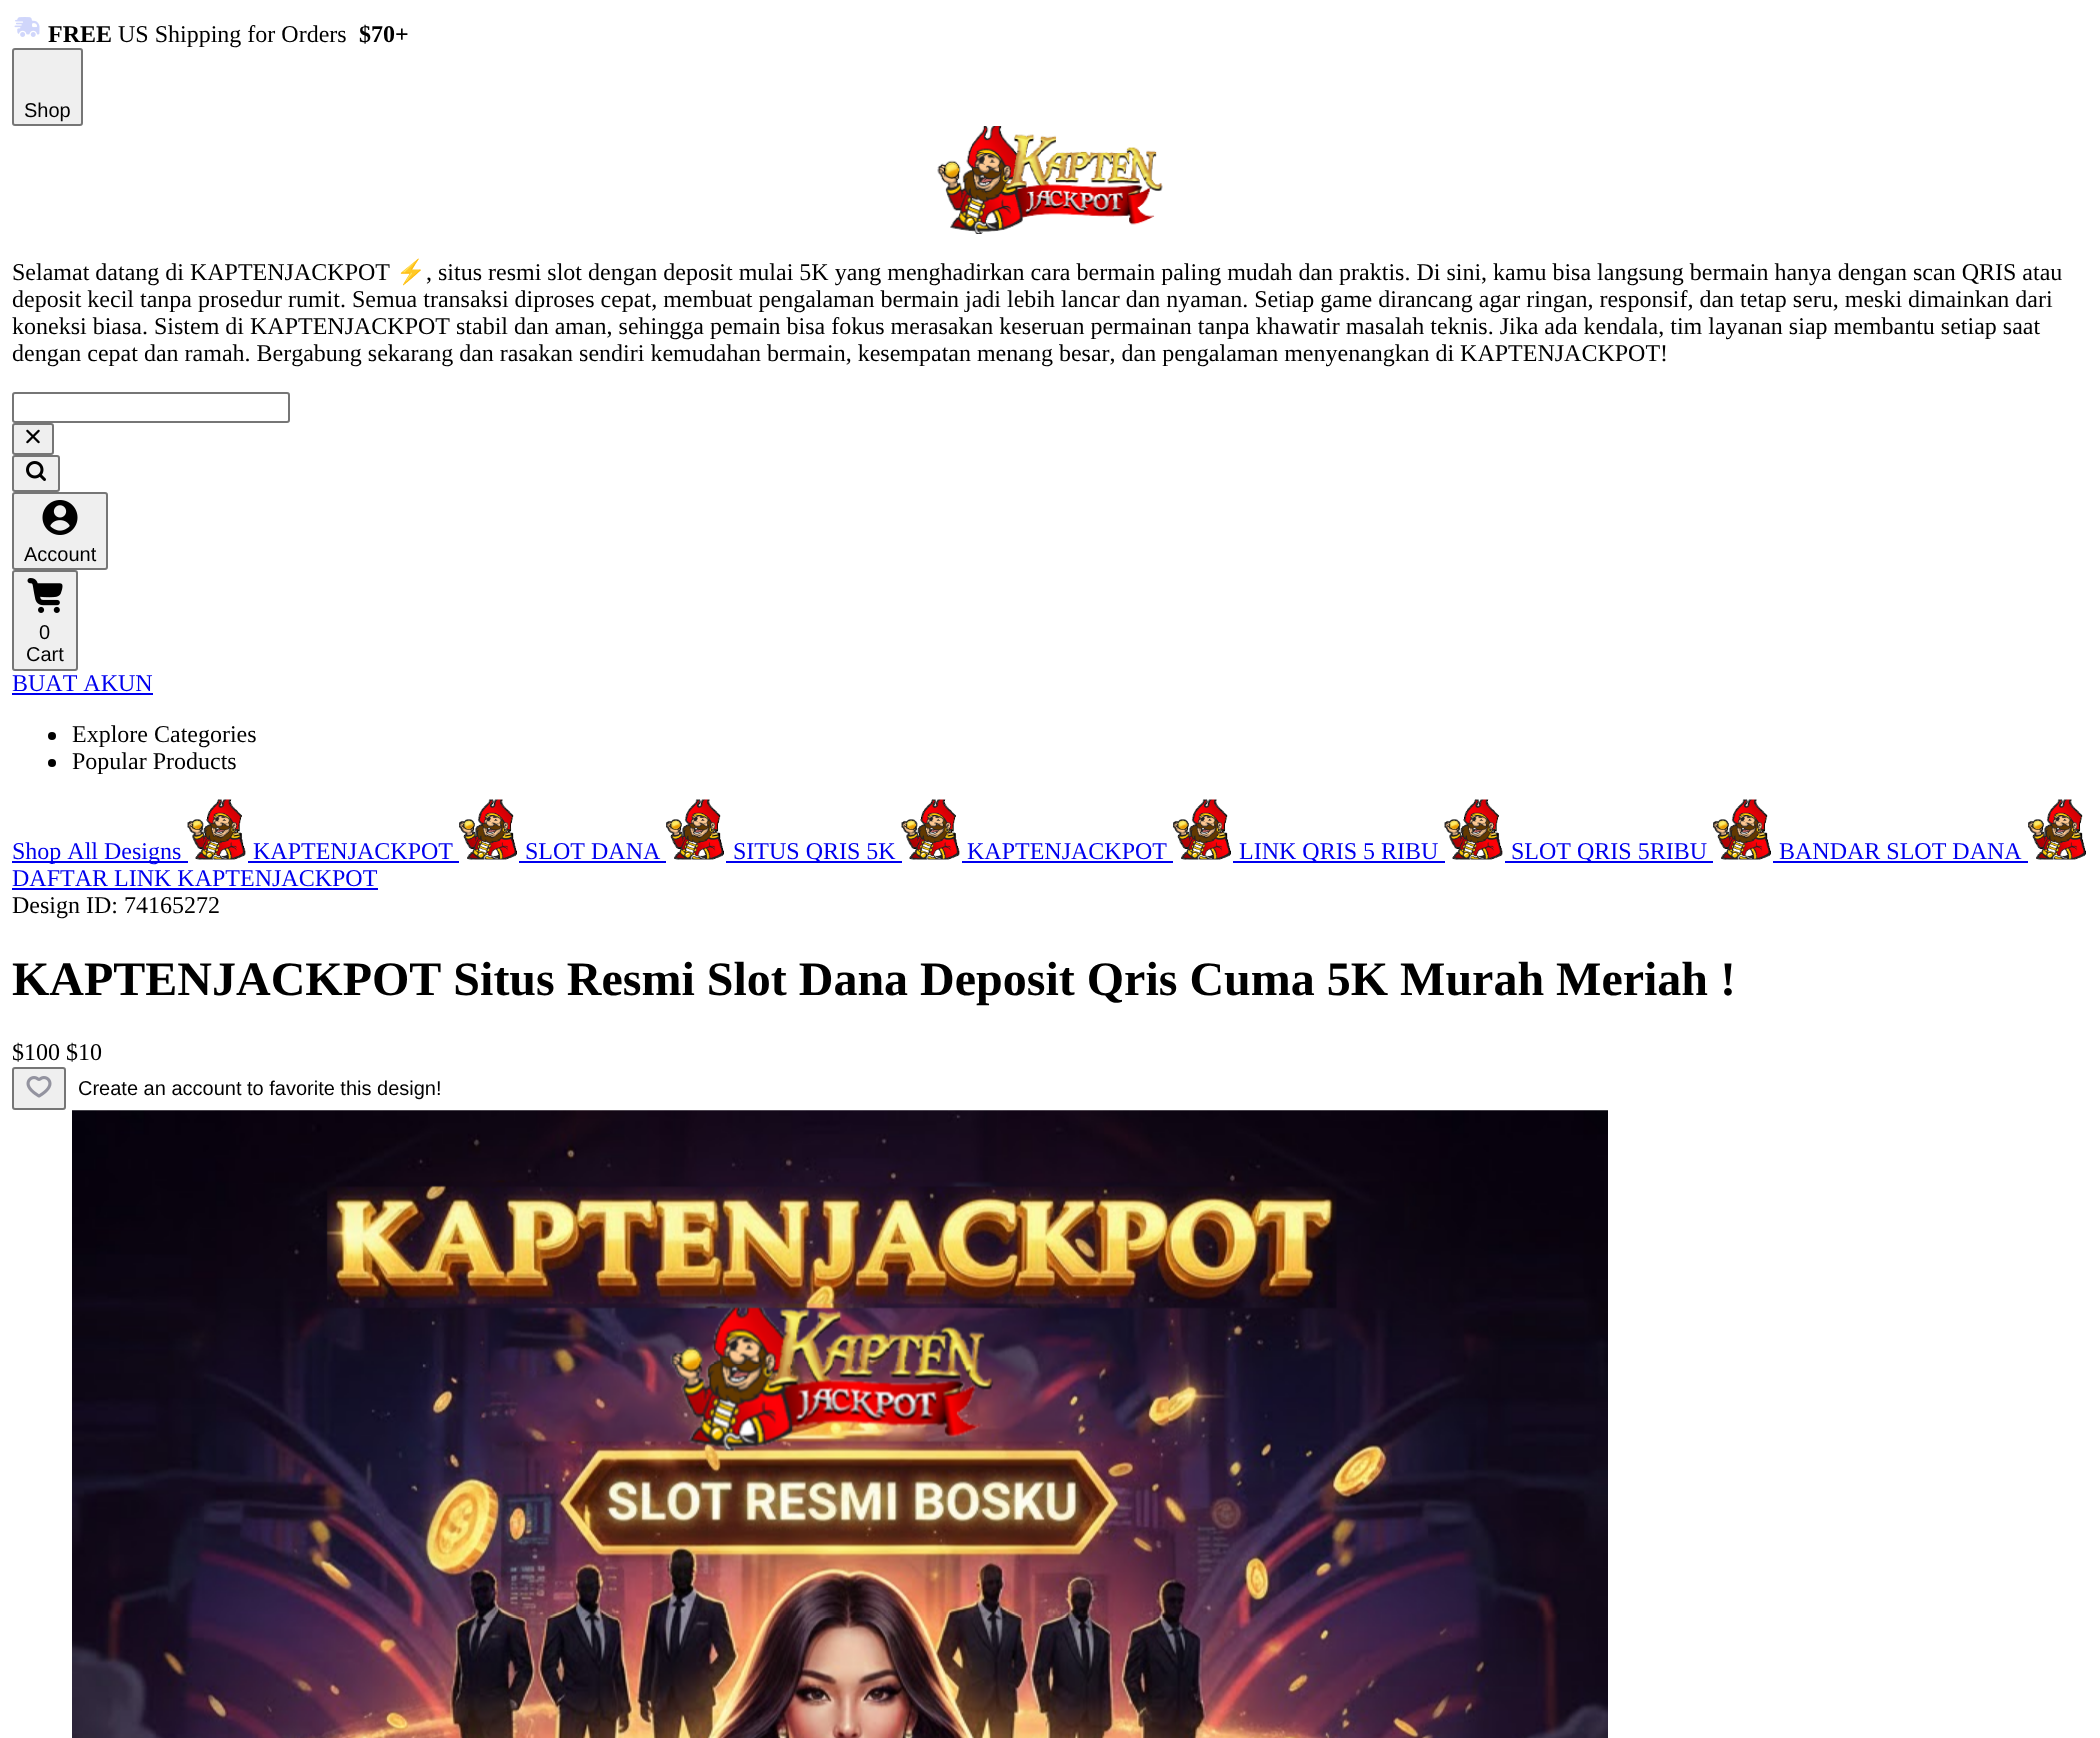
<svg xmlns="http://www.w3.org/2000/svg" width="2100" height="1738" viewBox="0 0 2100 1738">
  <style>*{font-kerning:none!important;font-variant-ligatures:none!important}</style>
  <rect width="100%" height="100%" fill="#fff"/>
  <image x="14" y="17" width="26" height="20" href="img/1.png"/>
  <rect x="13" y="49" width="69" height="76" rx="2" fill="#efefef" stroke="#767676" stroke-width="2"/>
  <image x="937" y="126" width="226" height="108" href="img/2.png"/>
  <rect x="13" y="393" width="276" height="29" rx="2" fill="none" stroke="#767676" stroke-width="2"/>
  <rect x="13" y="424" width="40" height="30" rx="2" fill="#efefef" stroke="#767676" stroke-width="2"/>
  <image x="26" y="429" width="14" height="15" href="img/3.png"/>
  <rect x="13" y="456" width="46" height="35" rx="2" fill="#efefef" stroke="#767676" stroke-width="2"/>
  <image x="26" y="461" width="20" height="20" href="img/4.png"/>
  <rect x="13" y="493" width="94" height="76" rx="2" fill="#efefef" stroke="#767676" stroke-width="2"/>
  <image x="42" y="500" width="36" height="35" href="img/5.png"/>
  <rect x="13" y="571" width="64" height="99" rx="2" fill="#efefef" stroke="#767676" stroke-width="2"/>
  <image x="27" y="578" width="36" height="35" href="img/6.png"/>
  <path d="M12 693h141v2H12z" fill="#00e"/>
  <circle cx="52" cy="736" r="4" fill="#000"/>
  <circle cx="52" cy="763" r="4" fill="#000"/>
  <path d="M12 861h176v2H12z" fill="#00e"/>
  <image x="187" y="799" width="59" height="61" href="img/7.png"/>
  <path d="M248 861h211v2H248z" fill="#00e"/>
  <image x="459" y="799" width="58" height="61" href="img/8.png"/>
  <path d="M519 861h147v2H519z" fill="#00e"/>
  <image x="666" y="799" width="58" height="61" href="img/8.png"/>
  <path d="M726 861h176v2H726z" fill="#00e"/>
  <image x="901" y="799" width="59" height="61" href="img/7.png"/>
  <path d="M962 861h211v2H962z" fill="#00e"/>
  <image x="1173" y="799" width="58" height="61" href="img/8.png"/>
  <path d="M1233 861h212v2H1233z" fill="#00e"/>
  <image x="1444" y="799" width="59" height="61" href="img/7.png"/>
  <path d="M1505 861h208v2H1505z" fill="#00e"/>
  <image x="1713" y="799" width="58" height="61" href="img/8.png"/>
  <path d="M1773 861h255v2H1773z" fill="#00e"/>
  <image x="2028" y="799" width="58" height="61" href="img/8.png"/>
  <path d="M12 888h366v2H12z" fill="#00e"/>
  <rect x="13" y="1068" width="52" height="41" rx="2" fill="#efefef" stroke="#767676" stroke-width="2"/>
  <image x="26" y="1076" width="26" height="22" href="img/9.png"/>
  <image x="72" y="1110" width="1536" height="628" href="img/10.png"/>
  <text x="48" y="42" font-family="Liberation Serif" font-size="24" font-weight="bold" fill="#000">FREE</text>
  <text x="118" y="42" font-family="Liberation Serif" font-size="24" fill="#000">US Shipping for Orders</text>
  <text x="359" y="42" font-family="Liberation Serif" font-size="24" font-weight="bold" fill="#000">$70+</text>
  <text x="24" y="117" font-family="Liberation Sans" font-size="20" fill="#000">Shop</text>
  <text x="12" y="280" font-family="Liberation Serif" font-size="24" fill="#000">Selamat datang di KAPTENJACKPOT</text>
  <text x="396" y="280" font-family="Noto Color Emoji" font-size="24" fill="#000">⚡</text>
  <g font-family="Liberation Serif" font-size="24" fill="#000">
    <text x="426" y="280">, situs resmi slot dengan deposit mulai 5K yang menghadirkan cara bermain paling mudah dan praktis. Di sini, kamu bisa langsung bermain hanya dengan scan QRIS atau</text>
    <text x="12" y="307">deposit kecil tanpa prosedur rumit. Semua transaksi diproses cepat, membuat pengalaman bermain jadi lebih lancar dan nyaman. Setiap game dirancang agar ringan, responsif, dan tetap seru, meski dimainkan dari</text>
    <text x="12" y="334">koneksi biasa. Sistem di KAPTENJACKPOT stabil dan aman, sehingga pemain bisa fokus merasakan keseruan permainan tanpa khawatir masalah teknis. Jika ada kendala, tim layanan siap membantu setiap saat</text>
    <text x="12" y="361">dengan cepat dan ramah. Bergabung sekarang dan rasakan sendiri kemudahan bermain, kesempatan menang besar, dan pengalaman menyenangkan di KAPTENJACKPOT!</text>
  </g>
  <g font-family="Liberation Sans" font-size="20" fill="#000">
    <text x="24" y="561">Account</text>
    <text x="39" y="639">0</text>
    <text x="26" y="661">Cart</text>
  </g>
  <text x="12" y="691" font-family="Liberation Serif" font-size="24" fill="#00e">BUAT AKUN</text>
  <g font-family="Liberation Serif" font-size="24" fill="#000">
    <text x="72" y="742">Explore Categories</text>
    <text x="72" y="769">Popular Products</text>
  </g>
  <g font-family="Liberation Serif" font-size="24" fill="#00e">
    <text x="12" y="859">Shop All Designs</text>
    <text x="253" y="859">KAPTENJACKPOT</text>
    <text x="525" y="859">SLOT DANA</text>
    <text x="733" y="859">SITUS QRIS 5K</text>
    <text x="967" y="859">KAPTENJACKPOT</text>
    <text x="1239" y="859">LINK QRIS 5 RIBU</text>
    <text x="1511" y="859">SLOT QRIS 5RIBU</text>
    <text x="1779" y="859">BANDAR SLOT DANA</text>
    <text x="12" y="886">DAFTAR LINK KAPTENJACKPOT</text>
  </g>
  <text x="12" y="913" font-family="Liberation Serif" font-size="24" fill="#000">Design ID: 74165272</text>
  <text x="12" y="995" font-family="Liberation Serif" font-size="48" font-weight="bold" fill="#000">KAPTENJACKPOT Situs Resmi Slot Dana Deposit Qris Cuma 5K Murah Meriah !</text>
  <text x="12" y="1060" font-family="Liberation Serif" font-size="24" fill="#000">$100 $10</text>
  <text x="78" y="1095" font-family="Liberation Sans" font-size="20" fill="#000">Create an account to favorite this design!</text>
</svg>
